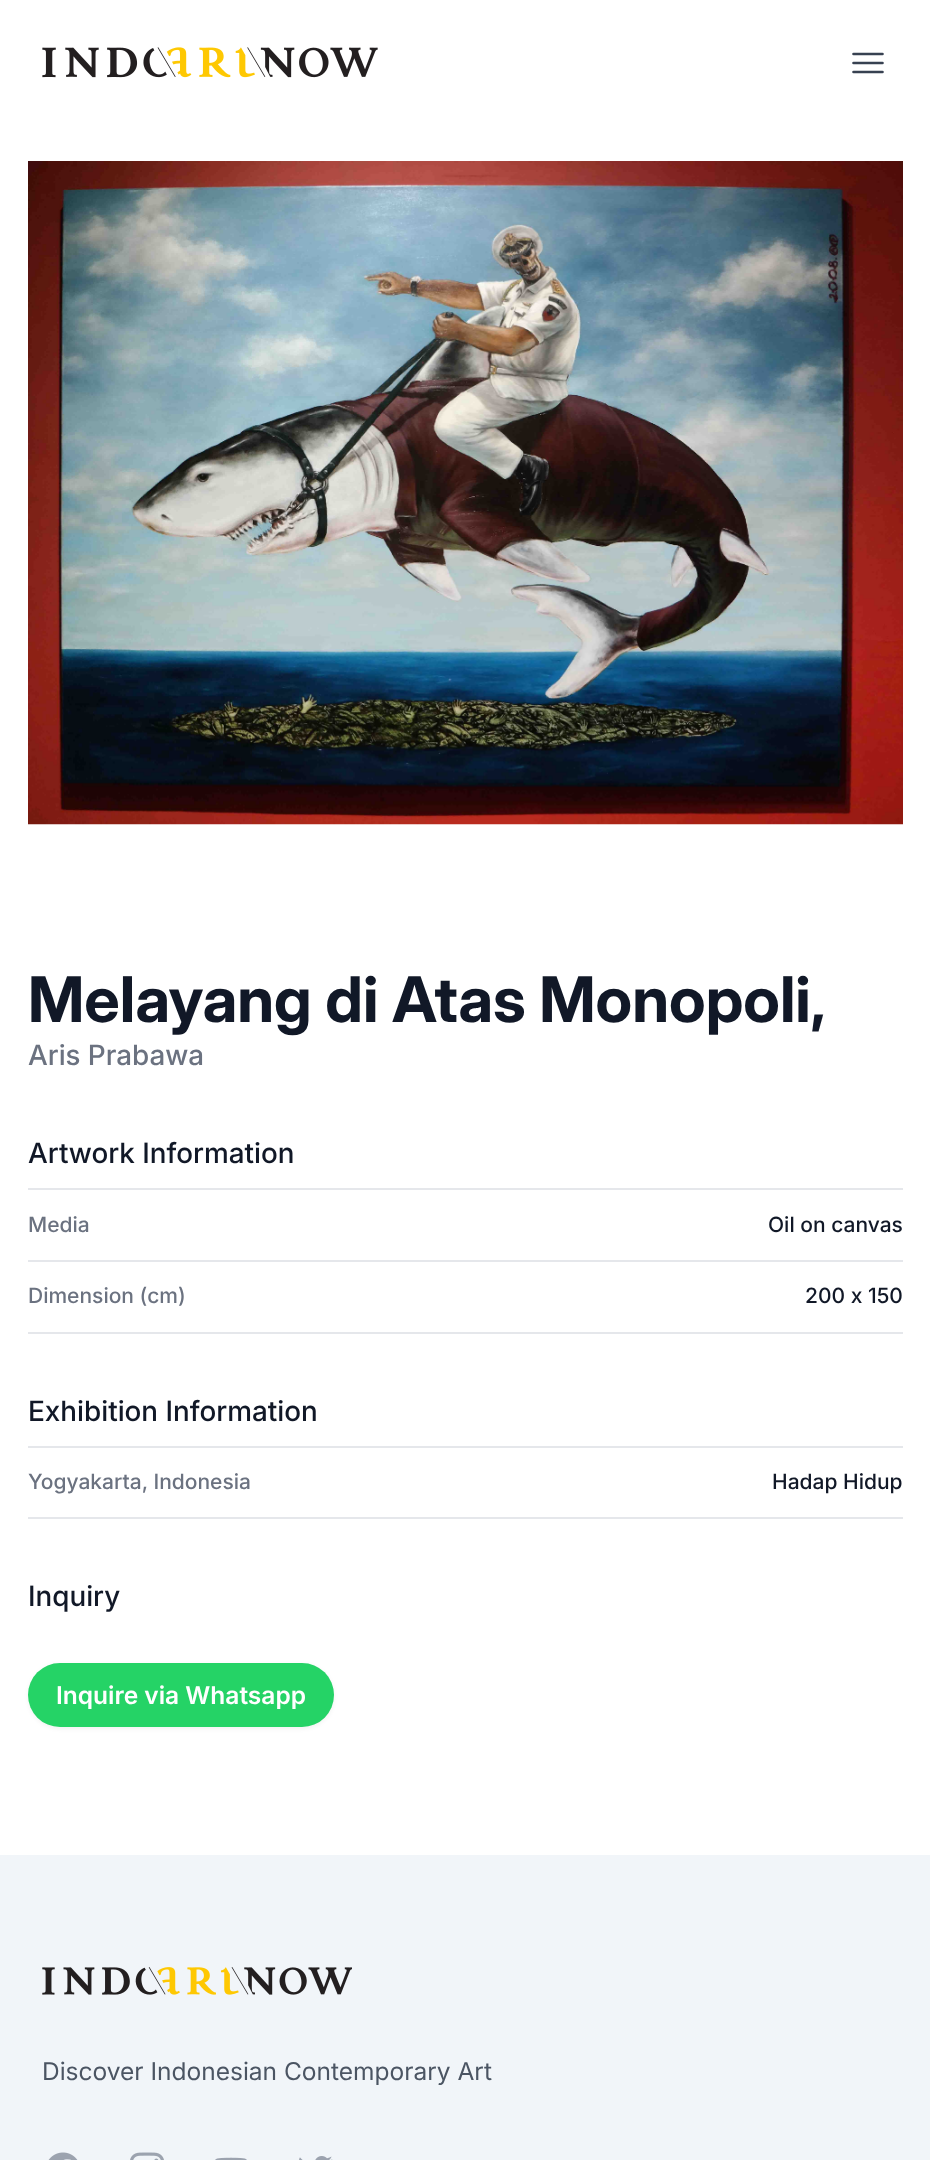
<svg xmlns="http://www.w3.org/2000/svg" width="930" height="2160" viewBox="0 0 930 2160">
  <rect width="100%" height="100%" fill="#fff"/>
  <image x="42" y="47" width="336" height="31" href="img/1.png"/>
  <path d="M853.5 54H882.5M853.5 63H882.5M853.5 72H882.5" fill="none" stroke="#374151" stroke-width="2.6" stroke-linecap="round" stroke-linejoin="round"/>
  <image x="28" y="161" width="875" height="664" href="img/2.png"/>
  <path d="M28 1188h875v2H28z" fill="#e5e7eb"/>
  <path d="M28 1332h875v2H28z" fill="#e5e7eb"/>
  <path d="M28 1260h875v2H28z" fill="#e5e7eb"/>
  <path d="M28 1446h875v2H28z" fill="#e5e7eb"/>
  <path d="M28 1517h875v2H28z" fill="#e5e7eb"/>
  <rect x="28" y="1664" width="306" height="65" rx="32.5" fill="#0000000d" filter="blur(2px)"/>
  <rect x="28" y="1663" width="306" height="64" rx="32" fill="#25d366"/>
  <path d="M0 1855h930v305H0z" fill="#f1f5f9"/>
  <image x="42" y="1967" width="310" height="28" href="img/3.png"/>
  <image x="48" y="2152" width="30" height="8" href="img/4.png"/>
  <image x="130" y="2152" width="34" height="8" href="img/5.png"/>
  <image x="215" y="2157" width="32" height="3" href="img/6.png"/>
  <image x="299" y="2156" width="34" height="4" href="img/7.png"/>
  <text x="28" y="1022" font-family="Inter" font-size="63" font-weight="bold" fill="#111827">Melayang di Atas Monopoli,</text>
  <text x="28" y="1065" font-family="Inter" font-size="28" font-weight="500" fill="#6b7280">Aris Prabawa</text>
  <text x="28" y="1163" font-family="Inter" font-size="28" font-weight="500" fill="#111827">Artwork Information</text>
  <text x="28" y="1232" font-family="'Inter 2'" font-size="21" font-weight="500" fill="#6b7280">Media</text>
  <text x="768" y="1232" font-family="'Inter 2'" font-size="21" font-weight="500" fill="#111827">Oil on canvas</text>
  <text x="28" y="1303" font-family="'Inter 2'" font-size="21" font-weight="500" fill="#6b7280">Dimension (cm)</text>
  <text x="805" y="1303" font-family="'Inter 2'" font-size="21" font-weight="500" fill="#111827">200 x 150</text>
  <text x="28" y="1421" font-family="Inter" font-size="28" font-weight="500" fill="#111827">Exhibition Information</text>
  <text x="28" y="1489" font-family="'Inter 2'" font-size="21" font-weight="500" fill="#6b7280">Yogyakarta, Indonesia</text>
  <text x="772" y="1489" font-family="'Inter 2'" font-size="21" font-weight="500" fill="#111827">Hadap Hidup</text>
  <text x="28" y="1606" font-family="Inter" font-size="28" font-weight="500" fill="#111827">Inquiry</text>
  <text x="56" y="1704" font-family="Inter" font-size="24.5" font-weight="600" fill="#fff">Inquire via Whatsapp</text>
  <text x="42" y="2080" font-family="Inter" font-size="24.5" fill="#4b5563">Discover Indonesian Contemporary Art</text>
</svg>
